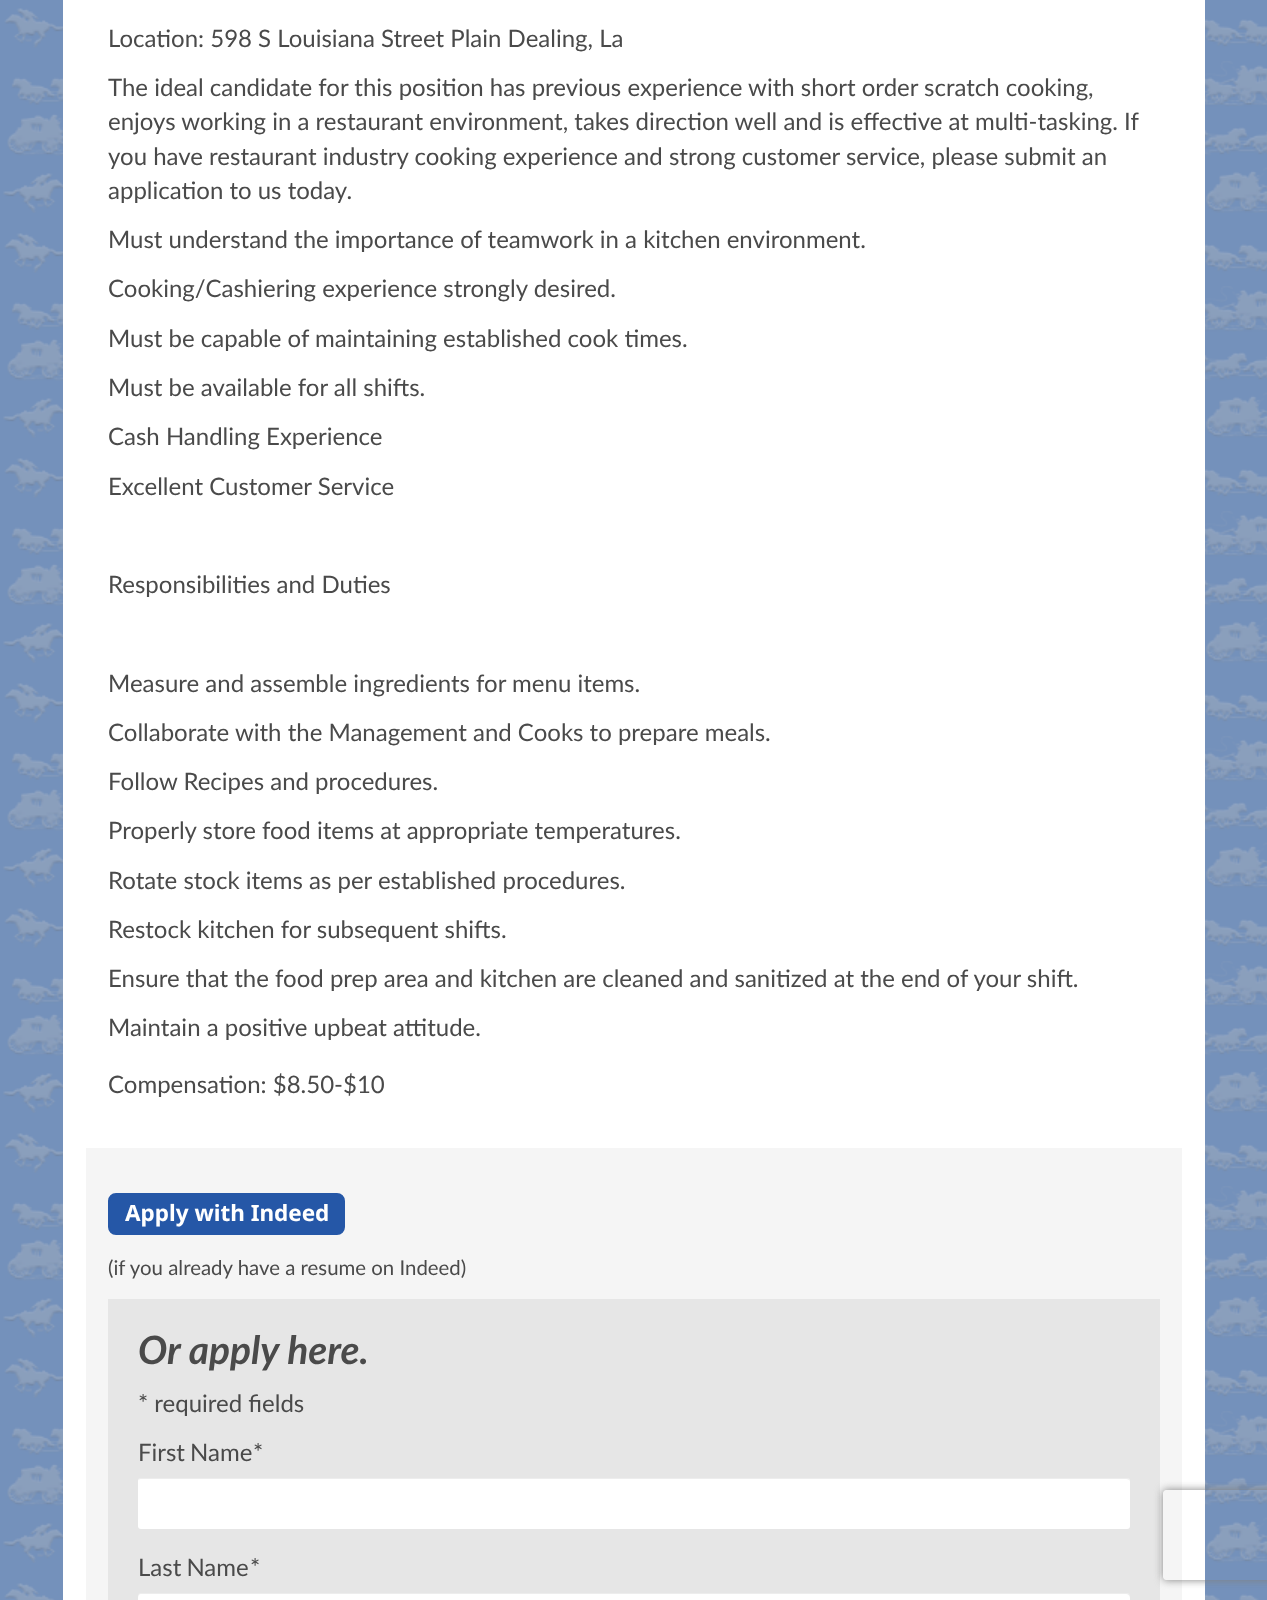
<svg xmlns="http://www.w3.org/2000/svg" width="1267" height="1600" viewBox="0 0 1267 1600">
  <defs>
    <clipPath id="clip1"><path d="M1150 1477H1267V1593H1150ZM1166 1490H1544C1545.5 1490 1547 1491.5 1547 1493V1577C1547 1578.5 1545.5 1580 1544 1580H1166C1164.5 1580 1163 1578.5 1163 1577V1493C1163 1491.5 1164.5 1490 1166 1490Z" clip-rule="evenodd"/></clipPath>
  </defs>
  <rect width="100%" height="100%" fill="#fff"/>
  <image x="0" y="0" width="1267" height="1600" href="img/1.png"/>
  <path d="M63 0h1142v1600H63z" fill="#fff"/>
  <path d="M86 1148h1096v452H86z" fill="#f5f5f5"/>
  <rect x="109" y="1194" width="235" height="40" rx="7" fill="#2557a7" stroke="#2557a7" stroke-width="2"/>
  <path d="M108 1299h1052v301H108z" fill="#e6e6e6"/>
  <rect x="138" y="1478" width="992" height="51" rx="3" fill="#fff"/>
  <path d="M141 1479H1126C1128 1479 1130 1480 1130 1482C1130 1480 1129 1478 1127 1478H141C139 1478 138 1480 138 1482C138 1480 139 1479 141 1479Z" fill="#00000012"/>
  <rect x="138" y="1593" width="992" height="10" rx="3" fill="#fff"/>
  <path d="M141 1594H1126C1128 1594 1130 1596 1130 1598V1596C1130 1594 1129 1593 1127 1593H141C139 1593 138 1594 138 1596V1598C138 1596 139 1594 141 1594Z" fill="#00000012"/>
  <g clip-path="url(#clip1)">
    <rect x="1163" y="1490" width="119" height="90" rx="3" fill="#808080" filter="blur(4px)"/>
  </g>
  <g font-family="Lato" font-size="24" fill="#4a4a4a">
    <text x="108" y="47">Location: 598 S Louisiana Street Plain Dealing, La</text>
    <text x="108" y="96">The ideal candidate for this position has previous experience with short order scratch cooking,</text>
    <text x="108" y="130">enjoys working in a restaurant environment, takes direction well and is effective at multi-tasking. If</text>
    <text x="108" y="165">you have restaurant industry cooking experience and strong customer service, please submit an</text>
    <text x="108" y="199">application to us today.</text>
    <text x="108" y="248">Must understand the importance of teamwork in a kitchen environment.</text>
    <text x="108" y="297">Cooking/Cashiering experience strongly desired.</text>
    <text x="108" y="347">Must be capable of maintaining established cook times.</text>
    <text x="108" y="396">Must be available for all shifts.</text>
    <text x="108" y="445">Cash Handling Experience</text>
    <text x="108" y="495">Excellent Customer Service</text>
    <text x="108" y="593">Responsibilities and Duties</text>
    <text x="108" y="692">Measure and assemble ingredients for menu items.</text>
    <text x="108" y="741">Collaborate with the Management and Cooks to prepare meals.</text>
    <text x="108" y="790">Follow Recipes and procedures.</text>
    <text x="108" y="839">Properly store food items at appropriate temperatures.</text>
    <text x="108" y="889">Rotate stock items as per established procedures.</text>
    <text x="108" y="938">Restock kitchen for subsequent shifts.</text>
    <text x="108" y="987">Ensure that the food prep area and kitchen are cleaned and sanitized at the end of your shift.</text>
    <text x="108" y="1036">Maintain a positive upbeat attitude.</text>
    <text x="108" y="1093">Compensation: $8.50-$10</text>
  </g>
  <text x="125" y="1221" font-family="Noto Sans" font-size="22.5" font-weight="bold" fill="#fff">Apply with Indeed</text>
  <text x="108" y="1275" font-family="Lato" font-size="20.4" fill="#4a4a4a">(if you already have a resume on Indeed)</text>
  <text x="138" y="1364" font-family="Lato" font-size="39" font-weight="bold" font-style="italic" fill="#4a4a4a">Or apply here.</text>
  <g font-family="Lato" font-size="24" fill="#4a4a4a">
    <text x="138" y="1412">* required fields</text>
    <text x="138" y="1461" word-spacing="-1">First Name</text>
    <text x="253" y="1461">*</text>
    <text x="138" y="1576" word-spacing="-1">Last Name</text>
    <text x="250" y="1576">*</text>
  </g>
</svg>
